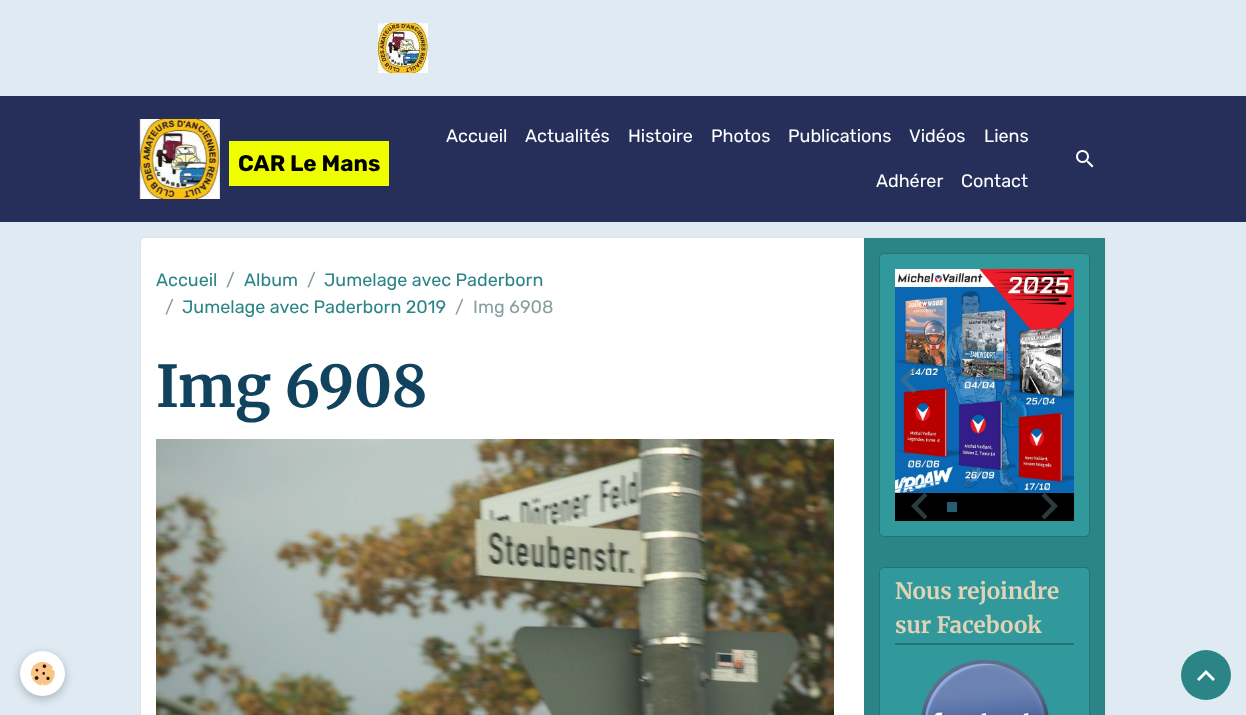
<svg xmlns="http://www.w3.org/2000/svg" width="1246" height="715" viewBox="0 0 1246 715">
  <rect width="100%" height="100%" fill="#dfeaf2"/>
  <image x="378" y="23" width="50" height="50" href="img/1.png"/>
  <path d="M0 96h1246v126H0z" fill="#252f5a"/>
  <image x="139" y="119" width="81" height="80" href="img/2.png"/>
  <path d="M229 141h160v45H229z" fill="#f0ff00"/>
  <image x="1076" y="150" width="18" height="18" href="img/3.png"/>
  <rect x="140.5" y="237.5" width="965" height="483" rx="4.5" fill="#fff" stroke="#e0e2eb"/>
  <image x="156" y="439" width="678" height="276" href="img/4.png"/>
  <path d="M864 238h241v477H864z" fill="#2b8587"/>
  <rect x="879.5" y="253.5" width="210" height="283" rx="4.5" fill="#31999b" stroke="#257374"/>
  <image x="895" y="269" width="179" height="224" href="img/5.png"/>
  <path d="M916.5 369.5L906.5 380L916.5 390.5L913.5 393.5L900 380L913.5 366.5Z" fill="#57757580"/>
  <path d="M1056.5 366.5L1070 380L1056.5 393.5L1053.5 390.5L1063.5 380L1053.5 369.5Z" fill="#57757580"/>
  <path d="M895 493h179v28H895z" fill="#000"/>
  <path d="M927.5 495.5L917.5 506L927.5 516.5L924.5 519.5L911 506L924.5 492.5Z" fill="#2c3b3b"/>
  <path d="M947 502h10v10H947z" fill="#255d74"/>
  <path d="M1044.5 492.5L1058 506L1044.5 519.5L1041.5 516.5L1051.5 506L1041.5 495.5Z" fill="#2c3b3b"/>
  <rect x="879.5" y="567.5" width="210" height="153" rx="4.5" fill="#31999b" stroke="#257374"/>
  <path d="M895 643h179v2H895z" fill="#257374"/>
  <image x="921" y="660" width="128" height="55" href="img/6.png"/>
  <rect x="20" y="654" width="45" height="45" rx="22.5" fill="#0000003d" filter="blur(5px)"/>
  <circle cx="42.5" cy="673.5" r="22.5" fill="#fff"/>
  <image x="30" y="661" width="25" height="25" href="img/7.png"/>
  <circle cx="1206" cy="675" r="25" fill="#2b8587"/>
  <path d="M1206 670L1215 679L1213 681L1206 674L1199 681L1197 679Z" fill="#fff"/>
  <text x="238" y="171" font-family="Rubik" font-size="22.5" font-weight="bold" fill="#000">CAR Le Mans</text>
  <g font-family="Rubik" font-size="18" fill="#fff">
    <text x="446" y="142">Accueil</text>
    <text x="525" y="142">Actualités</text>
    <text x="628" y="142">Histoire</text>
    <text x="711" y="142">Photos</text>
    <text x="788" y="142">Publications</text>
    <text x="909" y="142">Vidéos</text>
    <text x="984" y="142">Liens</text>
    <text x="876" y="187">Adhérer</text>
    <text x="961" y="187">Contact</text>
  </g>
  <text x="156" y="286" font-family="Rubik" font-size="18" fill="#2b8587">Accueil</text>
  <text x="226" y="286" font-family="Rubik" font-size="18" fill="#899e9e">/</text>
  <text x="244" y="286" font-family="Rubik" font-size="18" fill="#2b8587">Album</text>
  <text x="307" y="286" font-family="Rubik" font-size="18" fill="#899e9e">/</text>
  <text x="324" y="286" font-family="Rubik" font-size="18" fill="#2b8587">Jumelage avec Paderborn</text>
  <text x="165" y="313" font-family="Rubik" font-size="18" fill="#899e9e">/</text>
  <text x="182" y="313" font-family="Rubik" font-size="18" fill="#2b8587">Jumelage avec Paderborn 2019</text>
  <g font-family="Rubik" font-size="18" fill="#899e9e">
    <text x="455" y="313">/</text>
    <text x="473" y="313">Img 6908</text>
  </g>
  <text x="156" y="407" font-family="Merriweather" font-size="57.5" font-weight="bold" fill="#11435e">Img 6908</text>
  <g font-family="Merriweather" font-size="22.5" font-weight="bold" fill="#e2d3b6">
    <text x="895" y="599">Nous rejoindre</text>
    <text x="895" y="633">sur Facebook</text>
  </g>
</svg>
